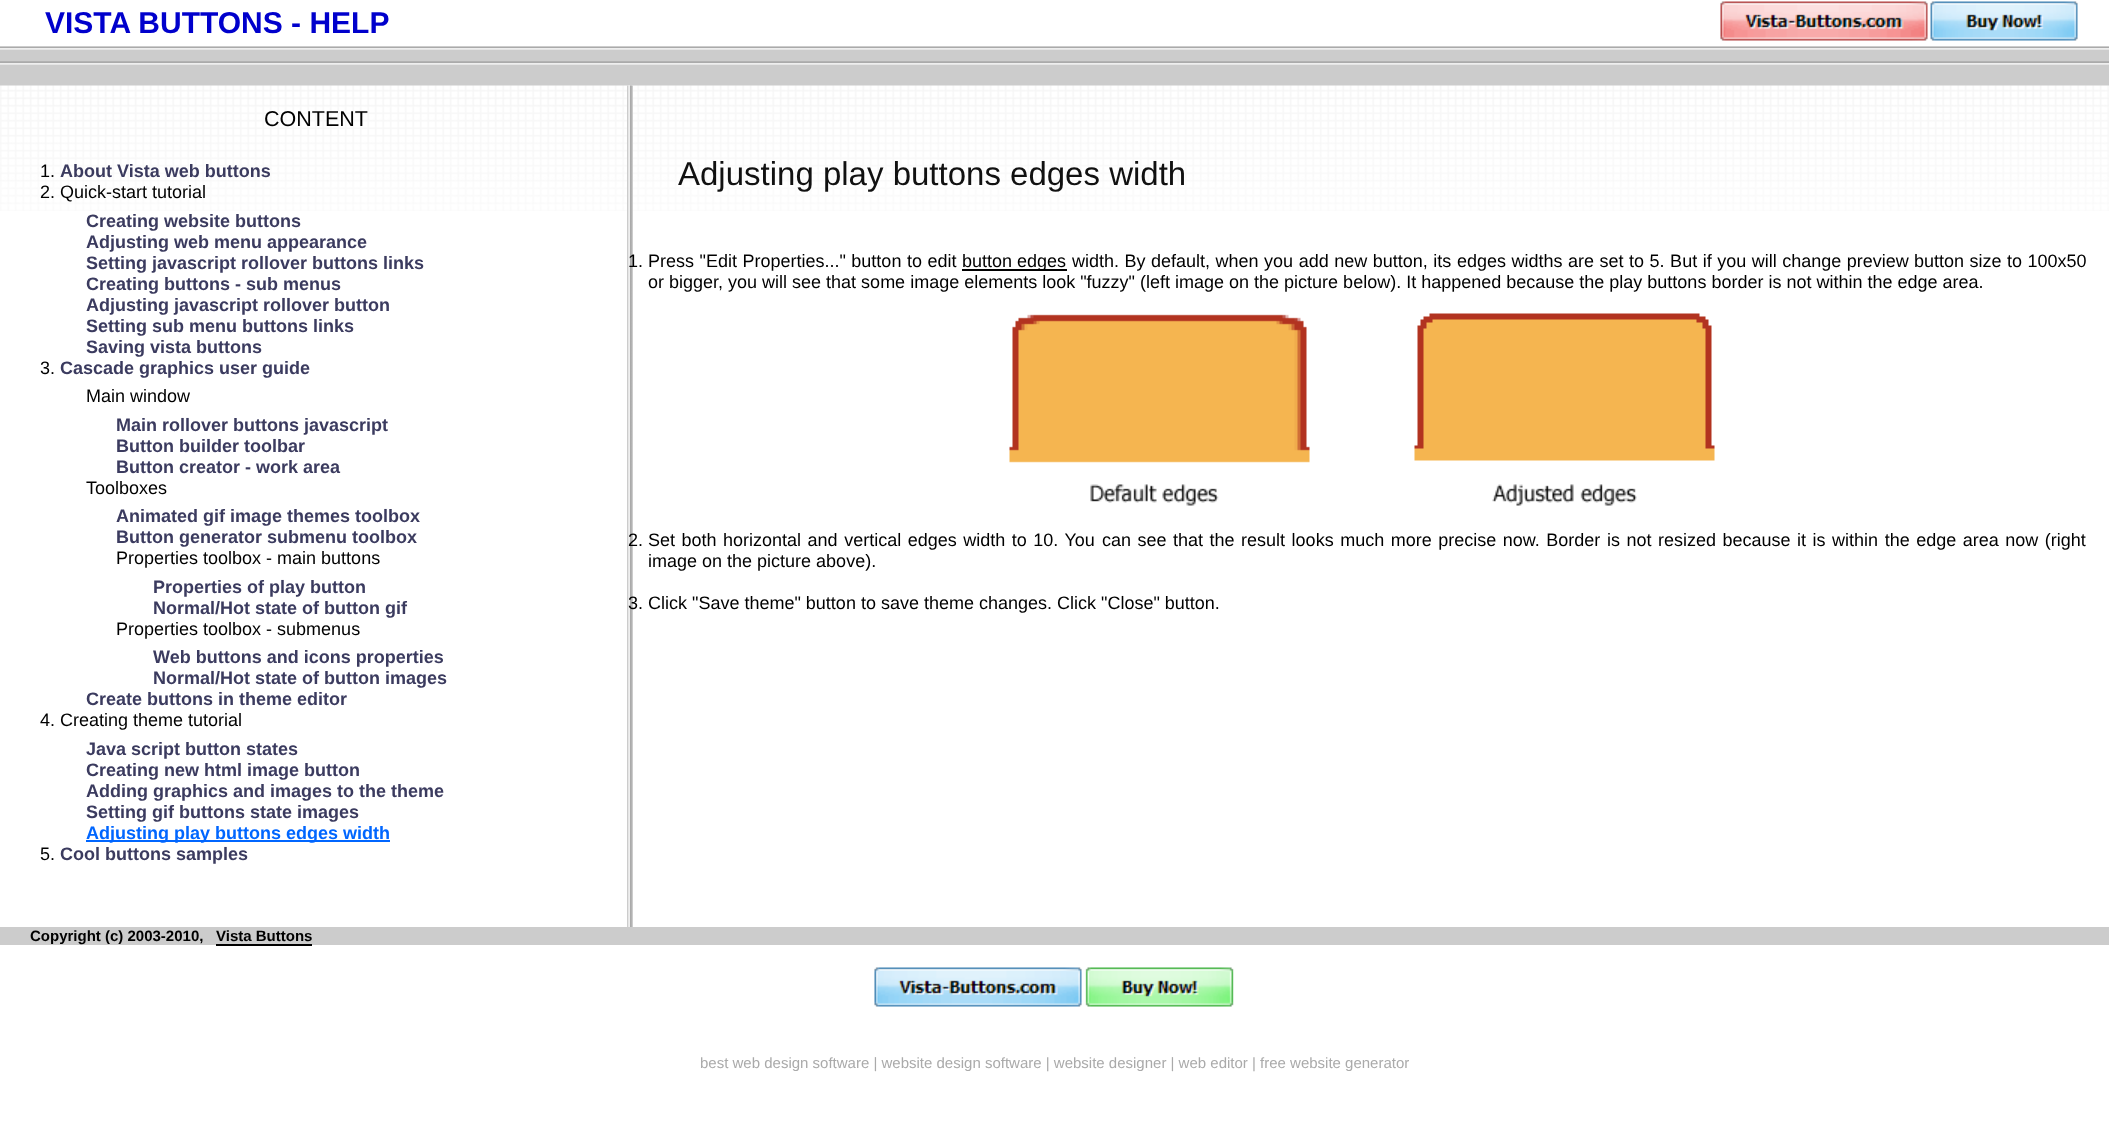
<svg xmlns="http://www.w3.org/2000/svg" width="2109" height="1136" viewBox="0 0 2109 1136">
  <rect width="100%" height="100%" fill="#fff"/>
  <image x="0" y="85" width="2109" height="126" href="img/1.png"/>
  <image x="1720" y="1" width="208" height="40" href="img/2.png"/>
  <image x="1930" y="1" width="148" height="40" href="img/3.png"/>
  <image x="0" y="46" width="2109" height="40" href="img/4.png"/>
  <image x="627" y="85" width="6" height="842" href="img/5.png"/>
  <path d="M86 840h304v2H86z" fill="#06f"/>
  <path d="M962 269h105v2H962z" fill="#000"/>
  <image x="1009" y="313" width="706" height="193" href="img/6.png"/>
  <path d="M0 927h2109v18H0z" fill="#ccc"/>
  <path d="M216 944h96v2H216z" fill="#000"/>
  <image x="874" y="967" width="208" height="40" href="img/7.png"/>
  <image x="1085" y="967" width="149" height="40" href="img/8.png"/>
  <text x="45" y="33" font-family="Liberation Sans" font-size="30" font-weight="bold" fill="#00c">VISTA BUTTONS - HELP</text>
  <text x="264" y="126" font-family="Liberation Sans" font-size="21.5" fill="#000">CONTENT</text>
  <text x="40" y="177" font-family="Liberation Sans" font-size="18" fill="#000">1.</text>
  <text x="60" y="177" font-family="Liberation Sans" font-size="18" font-weight="bold" fill="#3b3b5f">About Vista web buttons</text>
  <text x="40" y="198" font-family="Liberation Sans" font-size="18" fill="#000">2. Quick-start tutorial</text>
  <g font-family="Liberation Sans" font-size="18" font-weight="bold" fill="#3b3b5f">
    <text x="86" y="227">Creating website buttons</text>
    <text x="86" y="248">Adjusting web menu appearance</text>
    <text x="86" y="269">Setting javascript rollover buttons links</text>
    <text x="86" y="290">Creating buttons - sub menus</text>
    <text x="86" y="311">Adjusting javascript rollover button</text>
    <text x="86" y="332">Setting sub menu buttons links</text>
    <text x="86" y="353">Saving vista buttons</text>
  </g>
  <text x="40" y="374" font-family="Liberation Sans" font-size="18" fill="#000">3.</text>
  <text x="60" y="374" font-family="Liberation Sans" font-size="18" font-weight="bold" fill="#3b3b5f">Cascade graphics user guide</text>
  <text x="86" y="402" font-family="Liberation Sans" font-size="18" fill="#000">Main window</text>
  <g font-family="Liberation Sans" font-size="18" font-weight="bold" fill="#3b3b5f">
    <text x="116" y="431">Main rollover buttons javascript</text>
    <text x="116" y="452">Button builder toolbar</text>
    <text x="116" y="473">Button creator - work area</text>
  </g>
  <text x="86" y="494" font-family="Liberation Sans" font-size="18" fill="#000">Toolboxes</text>
  <g font-family="Liberation Sans" font-size="18" font-weight="bold" fill="#3b3b5f">
    <text x="116" y="522">Animated gif image themes toolbox</text>
    <text x="116" y="543">Button generator submenu toolbox</text>
  </g>
  <text x="116" y="564" font-family="Liberation Sans" font-size="18" fill="#000">Properties toolbox - main buttons</text>
  <g font-family="Liberation Sans" font-size="18" font-weight="bold" fill="#3b3b5f">
    <text x="153" y="593">Properties of play button</text>
    <text x="153" y="614">Normal/Hot state of button gif</text>
  </g>
  <text x="116" y="635" font-family="Liberation Sans" font-size="18" fill="#000">Properties toolbox - submenus</text>
  <g font-family="Liberation Sans" font-size="18" font-weight="bold" fill="#3b3b5f">
    <text x="153" y="663">Web buttons and icons properties</text>
    <text x="153" y="684">Normal/Hot state of button images</text>
    <text x="86" y="705">Create buttons in theme editor</text>
  </g>
  <text x="40" y="726" font-family="Liberation Sans" font-size="18" fill="#000">4. Creating theme tutorial</text>
  <g font-family="Liberation Sans" font-size="18" font-weight="bold" fill="#3b3b5f">
    <text x="86" y="755">Java script button states</text>
    <text x="86" y="776">Creating new html image button</text>
    <text x="86" y="797">Adding graphics and images to the theme</text>
    <text x="86" y="818">Setting gif buttons state images</text>
  </g>
  <text x="86" y="839" font-family="Liberation Sans" font-size="18" font-weight="bold" fill="#06f">Adjusting play buttons edges width</text>
  <text x="40" y="860" font-family="Liberation Sans" font-size="18" fill="#000">5.</text>
  <text x="60" y="860" font-family="Liberation Sans" font-size="18" font-weight="bold" fill="#3b3b5f">Cool buttons samples</text>
  <text x="678" y="185" font-family="Liberation Sans" font-size="33" fill="#111">Adjusting play buttons edges width</text>
  <g font-family="Liberation Sans" font-size="18" fill="#000">
    <text x="628" y="267">1.</text>
    <text x="648" y="267" word-spacing="0.5">Press "Edit Properties..." button to edit</text>
    <text x="962" y="267">button</text>
    <text x="1017" y="267">edges</text>
    <text x="1072" y="267" word-spacing="0.5">width. By default, when you add new button, its</text>
    <text x="1457" y="267" word-spacing="0.5">edges widths are set to 5. But if you will change preview</text>
    <text x="1914" y="267" word-spacing="0.5">button size to 100x50</text>
    <text x="648" y="288">or bigger, you will see that some image elements look "fuzzy" (left image on the picture below). It happened because the play buttons border is not within the edge area.</text>
    <text x="628" y="546">2.</text>
    <text x="648" y="546" word-spacing="1.5">Set both horizontal and vertical edges width to 10. You</text>
    <text x="1102" y="546" word-spacing="1.5">can see that the result looks much more precise now. Border</text>
    <text x="1607" y="546" word-spacing="1.5">is not resized because it is within the edge area now (right</text>
    <text x="648" y="567">image on the picture above).</text>
    <text x="628" y="609">3. Click "Save theme" button to save theme changes. Click "Close" button.</text>
  </g>
  <g font-family="Liberation Sans" font-size="15" font-weight="bold" fill="#000">
    <text x="30" y="941">Copyright (c) 2003-2010,</text>
    <text x="216" y="941">Vista Buttons</text>
  </g>
  <text x="700" y="1068" font-family="Liberation Sans" font-size="15" fill="#aaa">best web design software | website design software | website designer | web editor | free website generator</text>
</svg>
